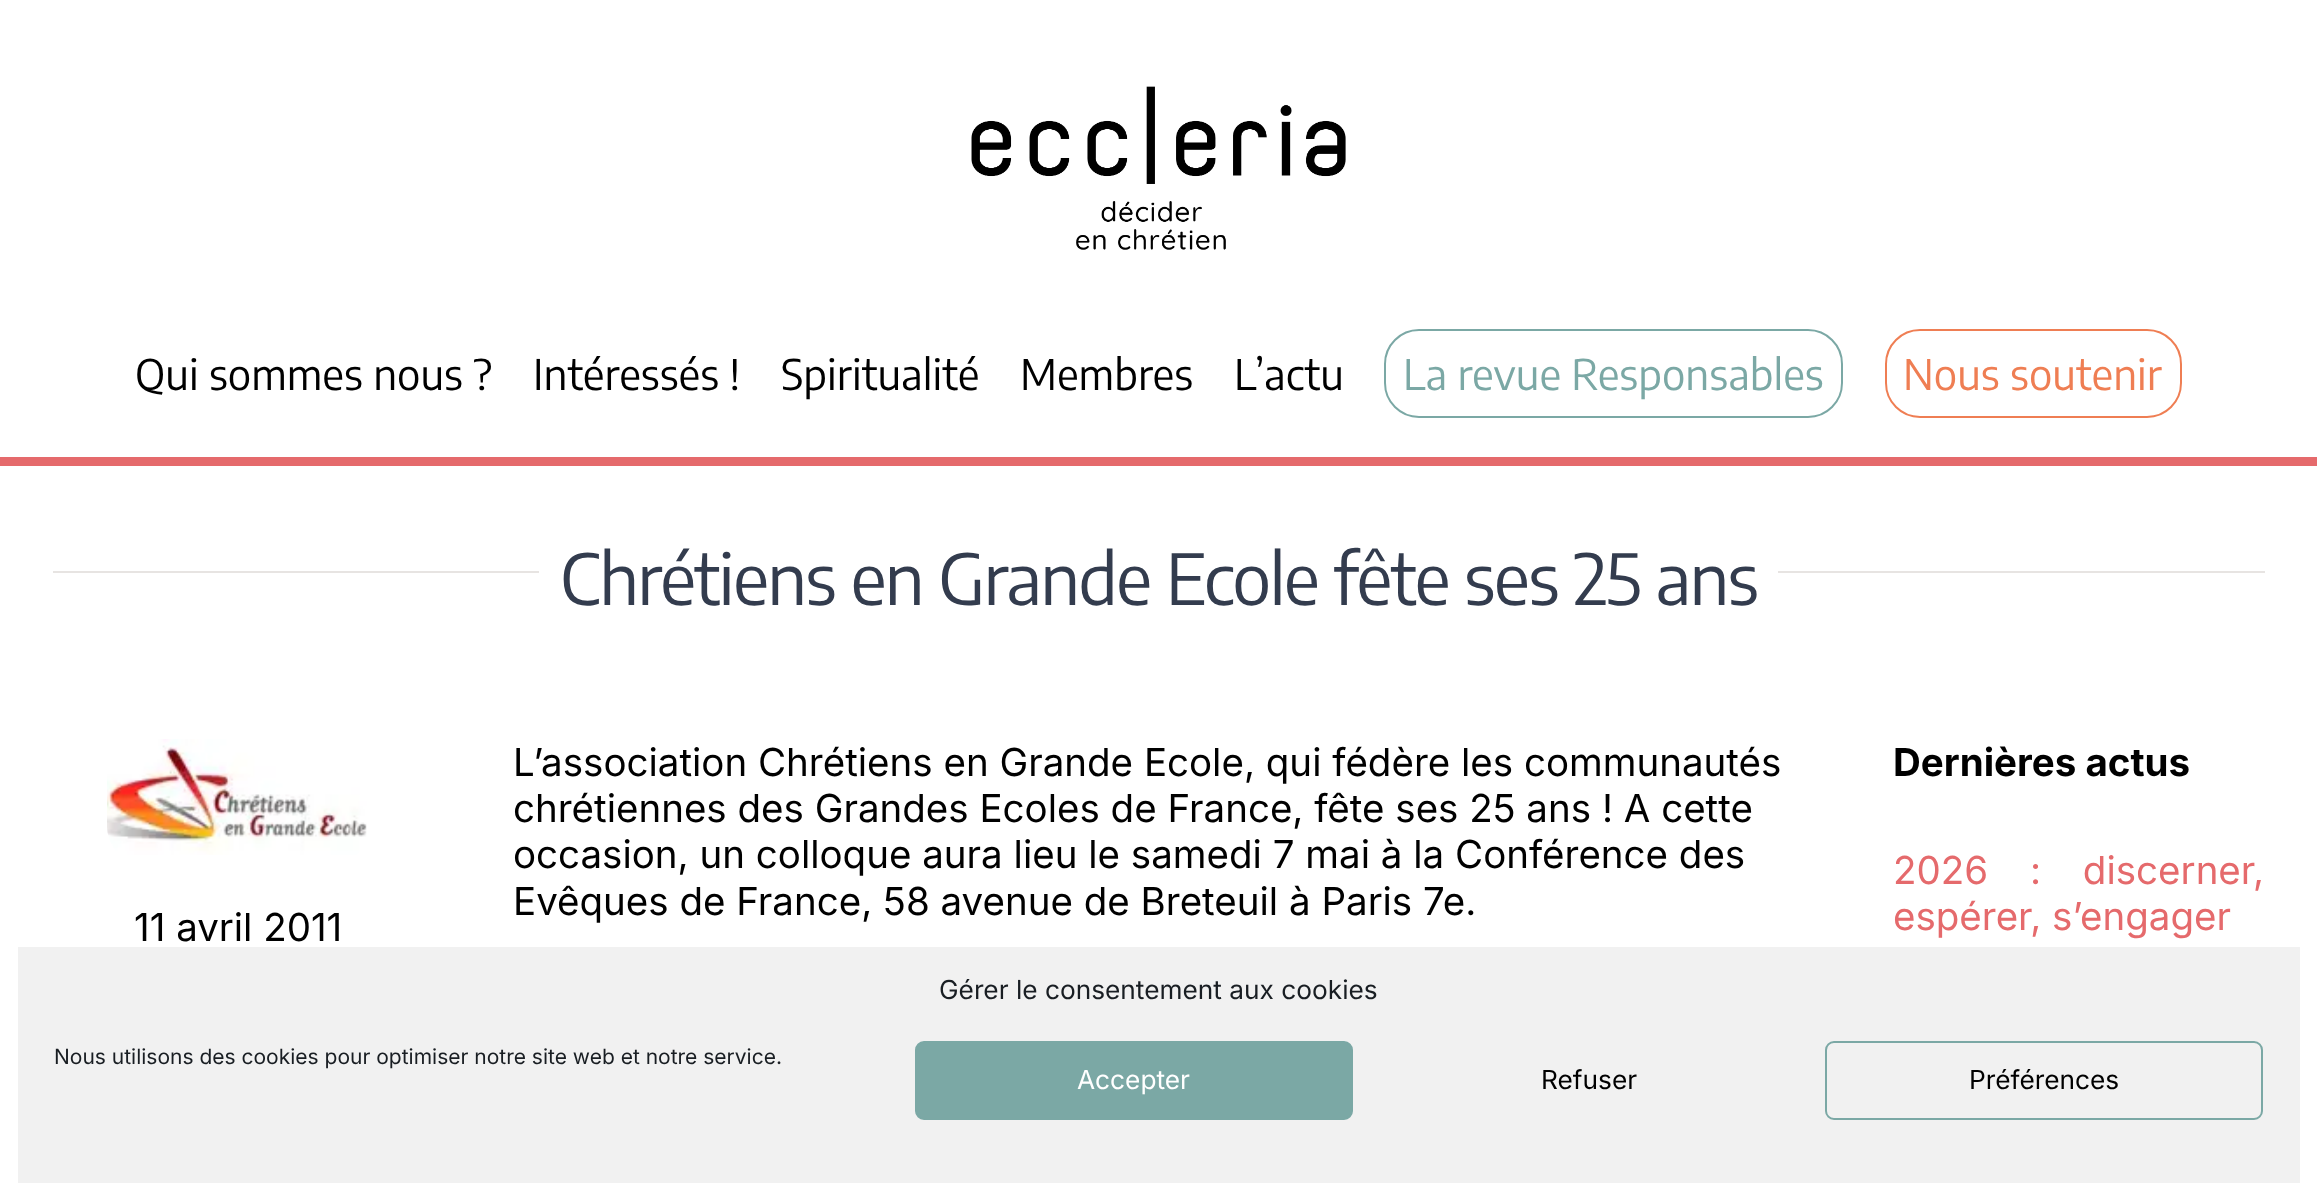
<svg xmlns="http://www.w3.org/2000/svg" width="2317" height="1200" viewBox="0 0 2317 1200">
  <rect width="100%" height="100%" fill="#fff"/>
  <image x="971" y="86" width="375" height="164" href="img/1.png"/>
  <path d="M0 457h2317v9H0z" fill="#e56a6c"/>
  <rect x="1385" y="330" width="457" height="87" rx="34" fill="none" stroke="#7ba8a5" stroke-width="2"/>
  <rect x="1886" y="330" width="295" height="87" rx="34" fill="none" stroke="#ef7e53" stroke-width="2"/>
  <path d="M53 571h486v2H53z" fill="#e7e4e2"/>
  <path d="M1778 571h487v2H1778z" fill="#e7e4e2"/>
  <image x="107" y="739" width="260" height="116" href="img/2.png"/>
  <path d="M18 947h2282v236H18z" fill="#f1f1f1"/>
  <rect x="916" y="1042" width="436" height="77" rx="8" fill="#7ba8a5" stroke="#7ba8a5" stroke-width="2"/>
  <rect x="1826" y="1042" width="436" height="77" rx="8" fill="none" stroke="#7ba8a5" stroke-width="2"/>
  <g font-family="Encode Sans Condensed" font-size="42" fill="#000">
    <text x="135" y="390">Qui sommes nous ?</text>
    <text x="533" y="390">Intéressés !</text>
    <text x="781" y="390">Spiritualité</text>
    <text x="1020" y="390">Membres</text>
    <text x="1234" y="390">L’actu</text>
  </g>
  <text x="1403" y="390" font-family="Encode Sans Condensed" font-size="42" fill="#7ba8a5">La revue Responsables</text>
  <text x="1903" y="390" font-family="Encode Sans Condensed" font-size="42" fill="#ef7e53">Nous soutenir</text>
  <text x="560" y="605" font-family="Encode Sans Condensed" font-size="70" letter-spacing="-1.75" fill="#333c4e">Chrétiens en Grande Ecole fête ses 25 ans</text>
  <g font-family="Inter" font-size="38.5" fill="#000">
    <text x="134" y="941">11 avril 2011</text>
    <text x="513" y="776">L’association Chrétiens en Grande Ecole, qui fédère les communautés</text>
    <text x="513" y="822">chrétiennes des Grandes Ecoles de France, fête ses 25 ans ! A cette</text>
    <text x="513" y="868">occasion, un colloque aura lieu le samedi 7 mai à la Conférence des</text>
    <text x="513" y="915">Evêques de France, 58 avenue de Breteuil à Paris 7e.</text>
  </g>
  <text x="1893" y="776" font-family="Inter" font-size="38.5" font-weight="bold" fill="#000">Dernières actus</text>
  <g font-family="Inter" font-size="38.5" fill="#e56a6c">
    <text x="1893" y="884" word-spacing="31">2026 : discerner,</text>
    <text x="1893" y="930">espérer, s’engager</text>
  </g>
  <text x="939" y="999" font-family="Inter" font-size="26.25" fill="#191e23">Gérer le consentement aux cookies</text>
  <text x="54" y="1064" font-family="Inter" font-size="21" fill="#191e23">Nous utilisons des cookies pour optimiser notre site web et notre service.</text>
  <text x="1077" y="1089" font-family="Inter" font-size="26.25" fill="#fff">Accepter</text>
  <g font-family="Inter" font-size="26.25" fill="#000">
    <text x="1541" y="1089">Refuser</text>
    <text x="1969" y="1089">Préférences</text>
  </g>
</svg>
